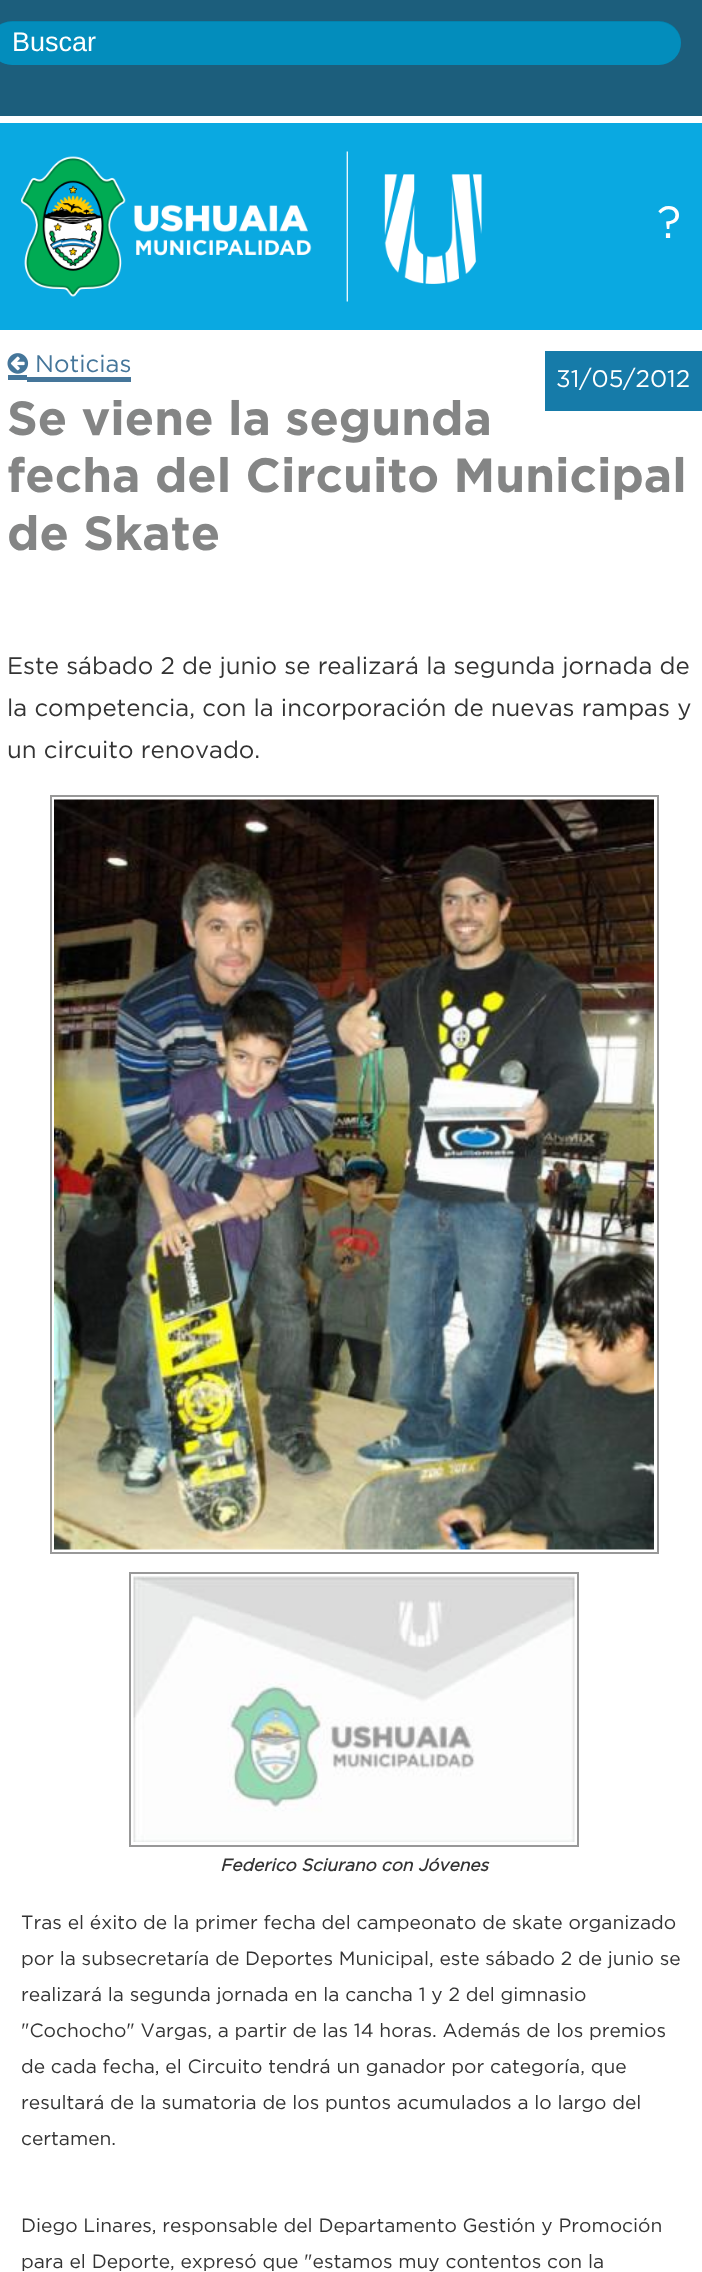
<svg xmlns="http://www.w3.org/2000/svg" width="702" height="2272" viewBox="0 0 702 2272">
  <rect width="100%" height="100%" fill="#fff"/>
  <path d="M0 0h702v116H0z" fill="#1c5e7c"/>
  <rect x="-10" y="21" width="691" height="44" rx="22" fill="#038dbc"/>
  <path d="M11 22H659C671 22 681 32 681 44C681 31 671 21 659 21H12C8 21 3 22 0 25C-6 29-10 36-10 43C-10 32-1 22 11 22Z" fill="#00000012"/>
  <path d="M0 123h702v207H0z" fill="#0aa9e1"/>
  <image x="21" y="151" width="461" height="151" href="img/1.png"/>
  <path d="M8 375h19v5H8z" fill="#45769a"/>
  <path d="M27 377h104v5H27z" fill="#45769a"/>
  <image x="7" y="353" width="22" height="21" href="img/2.png"/>
  <path d="M545 351h157v60H545z" fill="#167ba9"/>
  <path d="M51 796h607v757H51z" fill="none" stroke="#989898" stroke-width="2"/>
  <image x="54" y="799" width="600" height="751" href="img/3.png"/>
  <path d="M130 1573h448v273H130z" fill="none" stroke="#989898" stroke-width="2"/>
  <image x="133" y="1576" width="442" height="266" href="img/4.png"/>
  <text x="12" y="51" font-family="Liberation Sans" font-size="27" fill="#fff">Buscar</text>
  <text x="657" y="238" font-family="Gotham" font-size="45" fill="#fff">?</text>
  <text x="35" y="372" font-family="Gotham" font-size="24" fill="#45769a">Noticias</text>
  <text x="556" y="387" font-family="Gotham" font-size="24" fill="#fff">31/05/2012</text>
  <g font-family="Gotham" font-size="48" font-weight="bold" fill="#848585">
    <text x="7" y="435">Se viene la segunda</text>
    <text x="7" y="492">fecha del Circuito Municipal</text>
    <text x="7" y="550">de Skate</text>
  </g>
  <g font-family="Gotham" font-size="24" fill="#333">
    <text x="7" y="674">Este sábado 2 de junio se realizará la segunda jornada de</text>
    <text x="7" y="716">la competencia, con la incorporación de nuevas rampas y</text>
    <text x="7" y="758">un circuito renovado.</text>
  </g>
  <text x="220" y="1871" font-family="Gotham" font-size="17.25" font-weight="bold" font-style="italic" fill="#333">Federico Sciurano con Jóvenes</text>
  <g font-family="Gotham" font-size="19.2" fill="#333">
    <text x="21" y="1929">Tras el éxito de la primer fecha del campeonato de skate organizado</text>
    <text x="21" y="1965">por la subsecretaría de Deportes Municipal, este sábado 2 de junio se</text>
    <text x="21" y="2001">realizará la segunda jornada en la cancha 1 y 2 del gimnasio</text>
    <text x="21" y="2037">"Cochocho" Vargas, a partir de las 14 horas. Además de los premios</text>
    <text x="21" y="2073">de cada fecha, el Circuito tendrá un ganador por categoría, que</text>
    <text x="21" y="2109">resultará de la sumatoria de los puntos acumulados a lo largo del</text>
    <text x="21" y="2145">certamen.</text>
    <text x="21" y="2232">Diego Linares, responsable del Departamento Gestión y Promoción</text>
    <text x="21" y="2268">para el Deporte, expresó que "estamos muy contentos con la</text>
  </g>
</svg>
